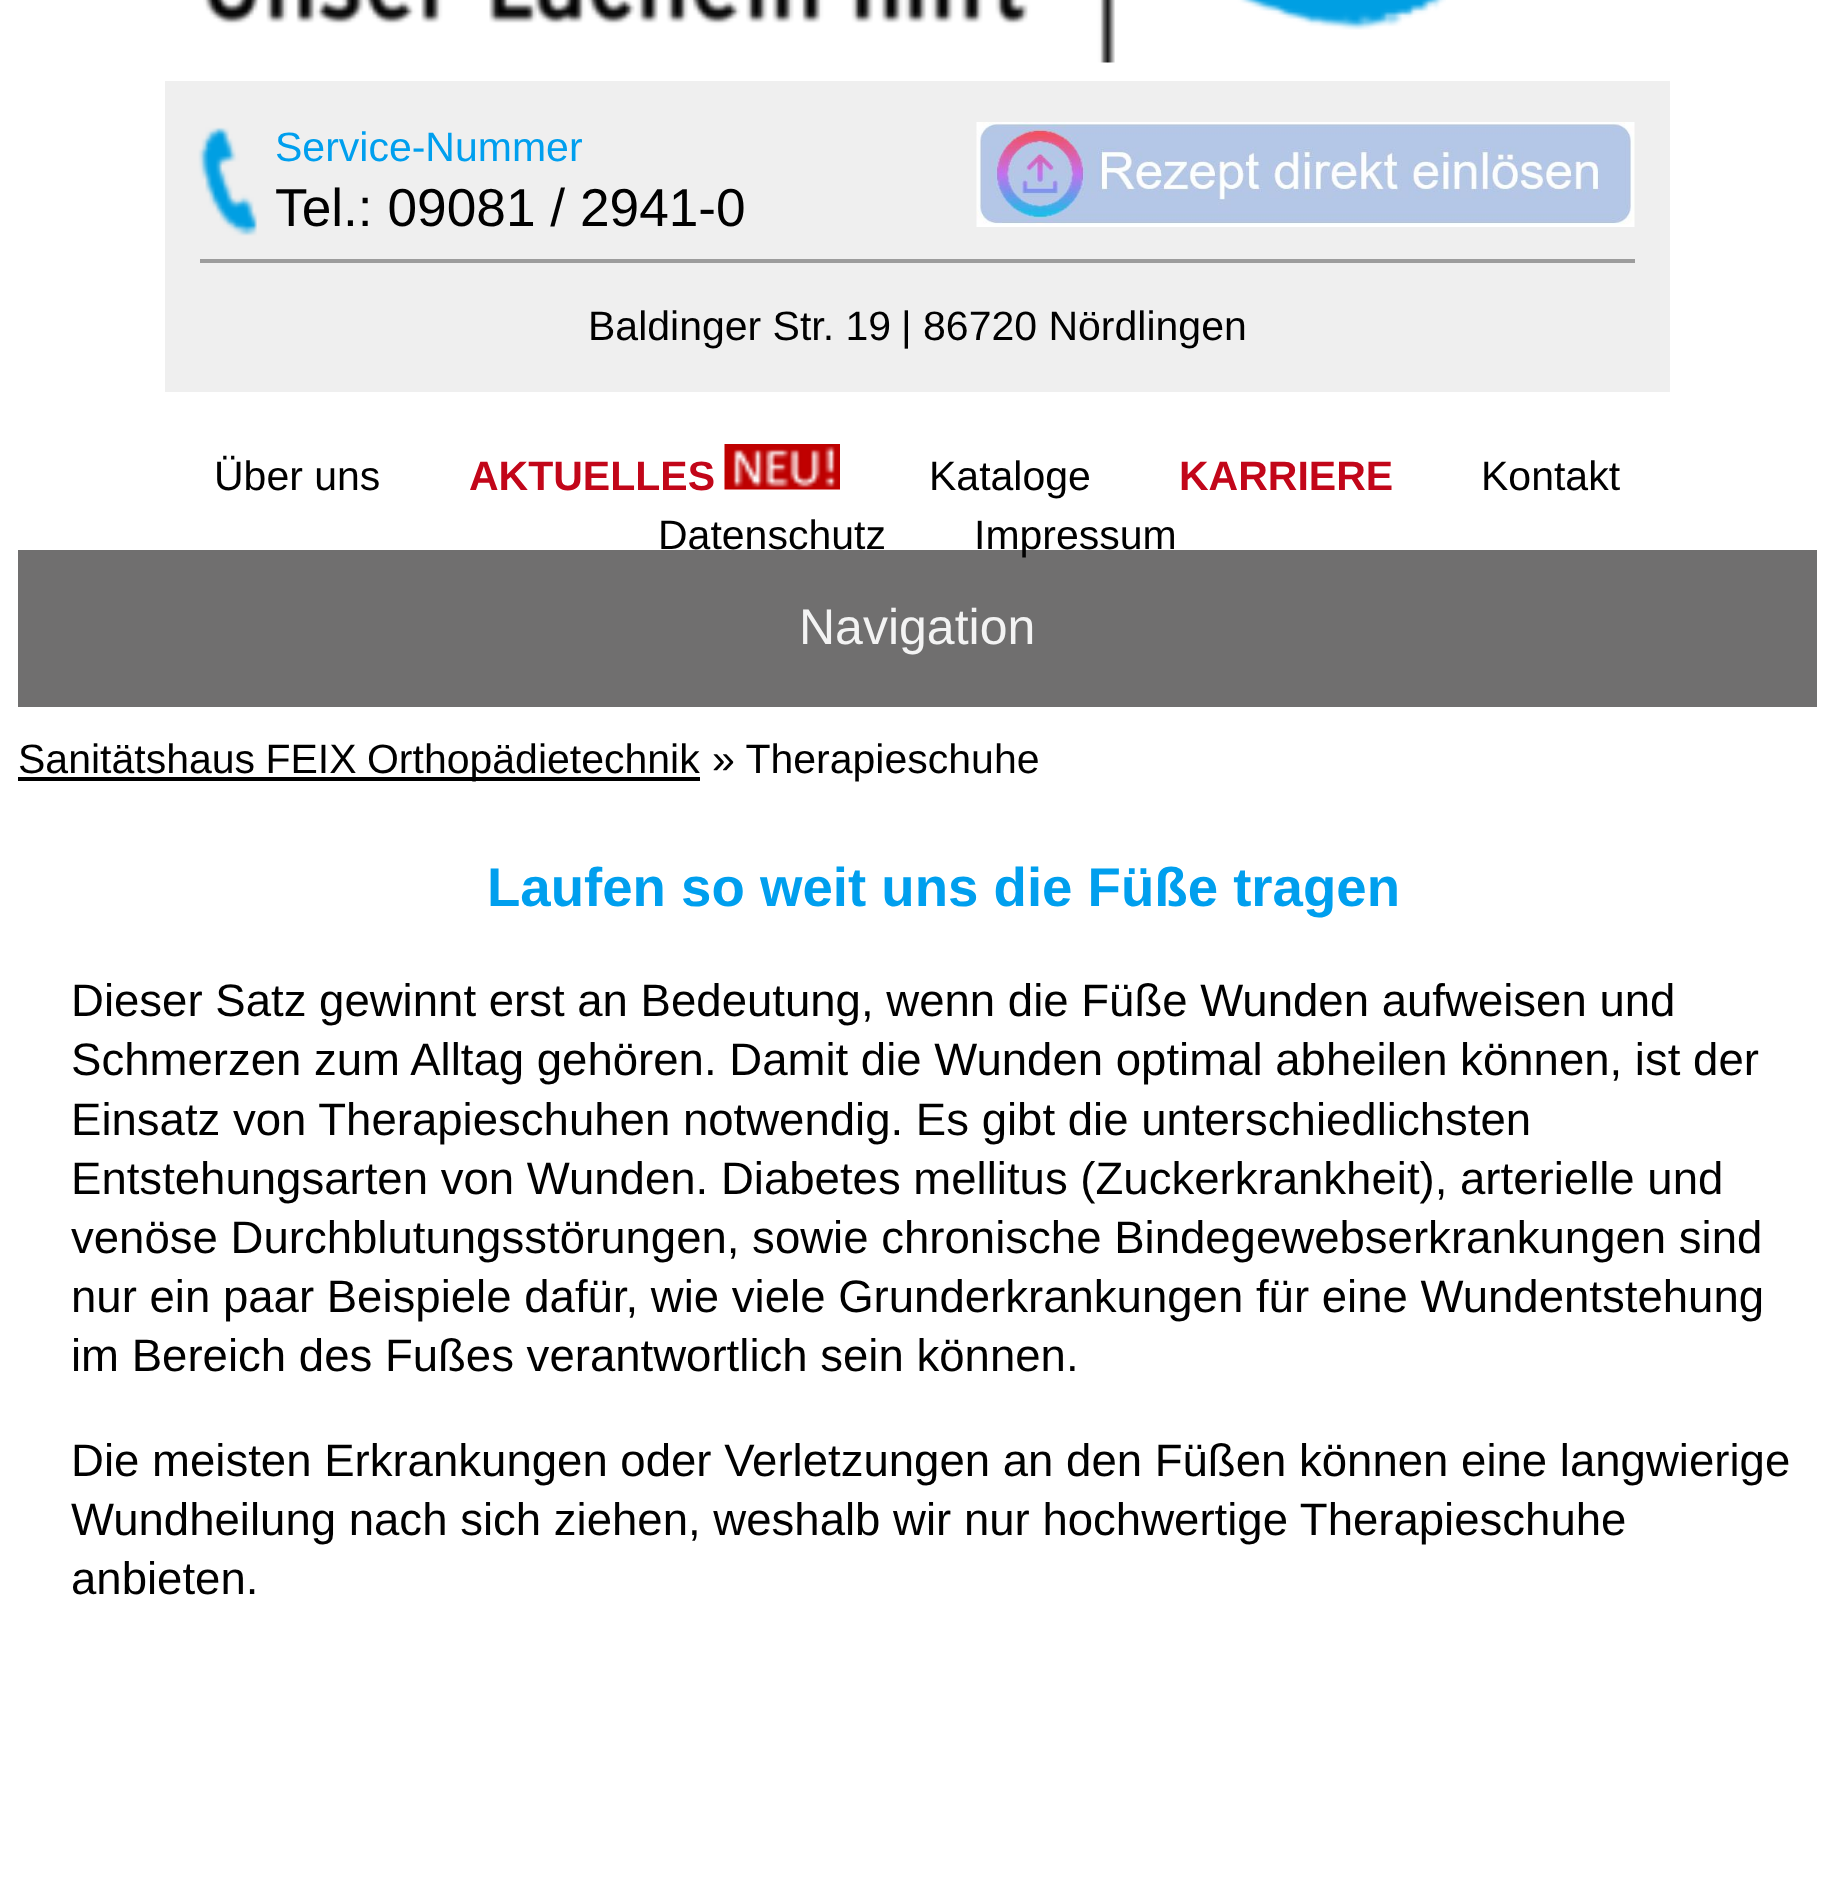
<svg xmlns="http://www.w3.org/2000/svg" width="1831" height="1892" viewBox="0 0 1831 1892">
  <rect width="100%" height="100%" fill="#fff"/>
  <image x="203" y="0" width="1243" height="63" href="img/1.png"/>
  <path d="M165 81h1505v311H165z" fill="#efefef"/>
  <image x="198" y="127" width="59" height="109" href="img/2.png"/>
  <path d="M200 259h1435v4H200z" fill="#9c9c9c"/>
  <image x="976" y="122" width="659" height="105" href="img/3.png"/>
  <image x="724" y="444" width="116" height="46" href="img/4.png"/>
  <path d="M18 550h1799v157H18z" fill="#706f6f"/>
  <path d="M18 777h682v4H18z" fill="#000"/>
  <text x="275" y="161" font-family="Liberation Sans" font-size="41" fill="#009fee">Service-Nummer</text>
  <text x="275" y="226" font-family="Liberation Sans" font-size="53.25" fill="#000">Tel.: 09081 / 2941-0</text>
  <g font-family="Liberation Sans" font-size="41" fill="#000">
    <text x="588" y="340">Baldinger Str. 19</text>
    <text x="901" y="340">| 86720 Nördlingen</text>
    <text x="214" y="490">Über uns</text>
  </g>
  <text x="469" y="490" font-family="Liberation Sans" font-size="41" font-weight="bold" fill="#c20619">AKTUELLES</text>
  <text x="929" y="490" font-family="Liberation Sans" font-size="41" fill="#000">Kataloge</text>
  <text x="1179" y="490" font-family="Liberation Sans" font-size="41" font-weight="bold" fill="#c20619">KARRIERE</text>
  <g font-family="Liberation Sans" font-size="41" fill="#000">
    <text x="1481" y="490">Kontakt</text>
    <text x="658" y="549">Datenschutz</text>
    <text x="974" y="549">Impressum</text>
  </g>
  <text x="799" y="644" font-family="Liberation Sans" font-size="50" fill="#f3f3f3">Navigation</text>
  <g font-family="Liberation Sans" font-size="41" fill="#000">
    <text x="18" y="773" word-spacing="-1">Sanitätshaus FEIX Orthopädietechnik</text>
    <text x="712" y="773">» Therapieschuhe</text>
  </g>
  <text x="487" y="906" font-family="Liberation Sans" font-size="54.6" font-weight="bold" fill="#009fee">Laufen so weit uns die Füße tragen</text>
  <g font-family="Liberation Sans" font-size="45.55" fill="#000">
    <text x="71" y="1016">Dieser Satz gewinnt erst an Bedeutung, wenn die Füße Wunden aufweisen und</text>
    <text x="71" y="1075">Schmerzen zum Alltag gehören. Damit die Wunden optimal abheilen können, ist der</text>
    <text x="71" y="1135">Einsatz von Therapieschuhen notwendig. Es gibt die unterschiedlichsten</text>
    <text x="71" y="1194">Entstehungsarten von Wunden. Diabetes mellitus (Zuckerkrankheit), arterielle und</text>
    <text x="71" y="1253">venöse Durchblutungsstörungen, sowie chronische Bindegewebserkrankungen sind</text>
    <text x="71" y="1312">nur ein paar Beispiele dafür, wie viele Grunderkrankungen für eine Wundentstehung</text>
    <text x="71" y="1371">im Bereich des Fußes verantwortlich sein können.</text>
    <text x="71" y="1476">Die meisten Erkrankungen oder Verletzungen an den Füßen können eine langwierige</text>
    <text x="71" y="1535">Wundheilung nach sich ziehen, weshalb wir nur hochwertige Therapieschuhe</text>
    <text x="71" y="1594">anbieten.</text>
  </g>
</svg>
